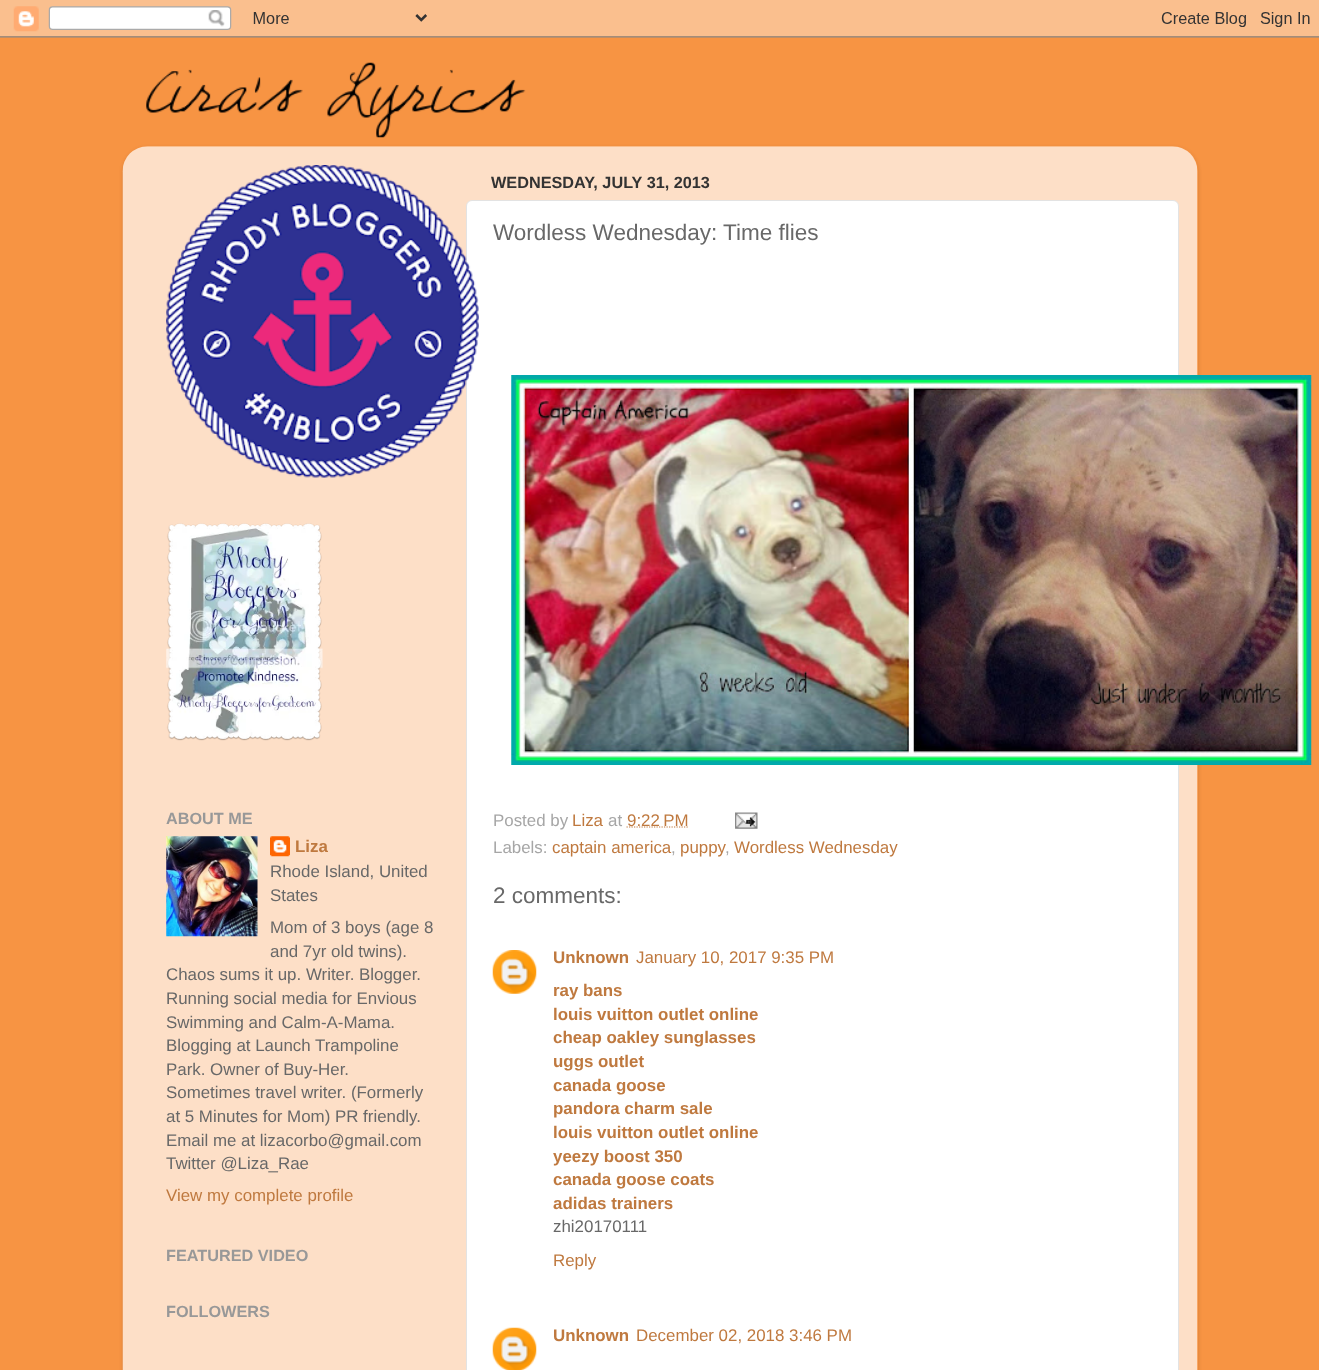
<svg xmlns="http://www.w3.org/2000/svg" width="1319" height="1370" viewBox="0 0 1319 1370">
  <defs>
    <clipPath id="clip1"><path d="M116 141H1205V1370H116ZM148 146H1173C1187 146 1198 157 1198 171V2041H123V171C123 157 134 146 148 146Z" clip-rule="evenodd"/></clipPath>
  </defs>
  <rect width="100%" height="100%" fill="#f79443"/>
  <image x="0" y="0" width="1319" height="38" href="img/1.png"/>
  <image x="146" y="62" width="380" height="76" href="img/2.png"/>
  <g clip-path="url(#clip1)">
    <rect x="123" y="148" width="1075" height="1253" rx="25" fill="#00000026" filter="blur(2px)"/>
  </g>
  <image x="122" y="146" width="1076" height="1224" href="img/3.png"/>
  <rect x="466.5" y="200.5" width="712" height="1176" rx="5.5" fill="#fff" stroke="#e3e3e3"/>
  <image x="166" y="165" width="313" height="313" href="img/4.png"/>
  <image x="166" y="523" width="157" height="218" href="img/5.png"/>
  <image x="166" y="836" width="92" height="101" href="img/6.png"/>
  <image x="270" y="836" width="20" height="21" href="img/7.png"/>
  <image x="511" y="375" width="801" height="390" href="img/8.png"/>
  <path d="M626.5 827H688" fill="none" stroke="#bf793f" stroke-width="1.2" stroke-dasharray="1.25 1.25"/>
  <image x="735" y="812" width="23" height="17" href="img/9.png"/>
  <image x="492" y="950" width="45" height="44" href="img/10.png"/>
  <image x="492" y="1327" width="45" height="43" href="img/11.png"/>
  <text x="166" y="824" font-family="Liberation Sans" font-size="16.25" font-weight="bold" fill="#989898">ABOUT ME</text>
  <text x="295" y="852" font-family="Liberation Sans" font-size="16.9" font-weight="bold" fill="#bf793f">Liza</text>
  <g font-family="Liberation Sans" font-size="16.9" fill="#686868">
    <text x="270" y="877">Rhode Island, United</text>
    <text x="270" y="901">States</text>
    <text x="270" y="933">Mom of 3 boys (age 8</text>
    <text x="270" y="957">and 7yr old twins).</text>
    <text x="166" y="980">Chaos sums it up. Writer. Blogger.</text>
    <text x="166" y="1004">Running social media for Envious</text>
    <text x="166" y="1028">Swimming and Calm-A-Mama.</text>
    <text x="166" y="1051">Blogging at Launch Trampoline</text>
    <text x="166" y="1075">Park. Owner of Buy-Her.</text>
    <text x="166" y="1098">Sometimes travel writer. (Formerly</text>
    <text x="166" y="1122">at 5 Minutes for Mom) PR friendly.</text>
    <text x="166" y="1146">Email me at lizacorbo@gmail.com</text>
    <text x="166" y="1169">Twitter @Liza_Rae</text>
  </g>
  <text x="166" y="1201" font-family="Liberation Sans" font-size="16.9" fill="#bf793f">View my complete profile</text>
  <g font-family="Liberation Sans" font-size="16.25" font-weight="bold" fill="#989898">
    <text x="166" y="1261">FEATURED VIDEO</text>
    <text x="166" y="1317">FOLLOWERS</text>
  </g>
  <text x="491" y="188" font-family="Liberation Sans" font-size="16.25" font-weight="bold" fill="#333">WEDNESDAY, JULY 31, 2013</text>
  <text x="493" y="240" font-family="Liberation Sans" font-size="22.5" fill="#686868">Wordless Wednesday: Time flies</text>
  <text x="493" y="826" font-family="Liberation Sans" font-size="16.9" fill="#a6a6a6">Posted by</text>
  <text x="572" y="826" font-family="Liberation Sans" font-size="16.9" fill="#bf793f">Liza</text>
  <text x="608" y="826" font-family="Liberation Sans" font-size="16.9" fill="#a6a6a6">at</text>
  <text x="627" y="826" font-family="Liberation Sans" font-size="16.9" fill="#bf793f">9:22 PM</text>
  <text x="493" y="853" font-family="Liberation Sans" font-size="16.9" fill="#a6a6a6">Labels:</text>
  <text x="552" y="853" font-family="Liberation Sans" font-size="16.9" fill="#bf793f">captain america</text>
  <text x="671" y="853" font-family="Liberation Sans" font-size="16.9" fill="#a6a6a6">,</text>
  <text x="680" y="853" font-family="Liberation Sans" font-size="16.9" fill="#bf793f">puppy</text>
  <text x="725" y="853" font-family="Liberation Sans" font-size="16.9" fill="#a6a6a6">,</text>
  <text x="734" y="853" font-family="Liberation Sans" font-size="16.9" fill="#bf793f">Wordless Wednesday</text>
  <text x="493" y="903" font-family="Liberation Sans" font-size="22.5" fill="#686868">2 comments:</text>
  <text x="553" y="963" font-family="Liberation Sans" font-size="16.9" font-weight="bold" fill="#bf793f">Unknown</text>
  <text x="636" y="963" font-family="Liberation Sans" font-size="16.9" fill="#bf793f">January 10, 2017 9:35 PM</text>
  <g font-family="Liberation Sans" font-size="16.9" font-weight="bold" fill="#bf793f">
    <text x="553" y="996">ray bans</text>
    <text x="553" y="1020">louis vuitton outlet online</text>
    <text x="553" y="1043">cheap oakley sunglasses</text>
    <text x="553" y="1067">uggs outlet</text>
    <text x="553" y="1091">canada goose</text>
    <text x="553" y="1114">pandora charm sale</text>
    <text x="553" y="1138">louis vuitton outlet online</text>
    <text x="553" y="1162">yeezy boost 350</text>
    <text x="553" y="1185">canada goose coats</text>
    <text x="553" y="1209">adidas trainers</text>
  </g>
  <text x="553" y="1232" font-family="Liberation Sans" font-size="16.9" fill="#686868">zhi20170111</text>
  <text x="553" y="1266" font-family="Liberation Sans" font-size="16.9" fill="#bf793f">Reply</text>
  <text x="553" y="1341" font-family="Liberation Sans" font-size="16.9" font-weight="bold" fill="#bf793f">Unknown</text>
  <text x="636" y="1341" font-family="Liberation Sans" font-size="16.9" fill="#bf793f">December 02, 2018 3:46 PM</text>
</svg>
